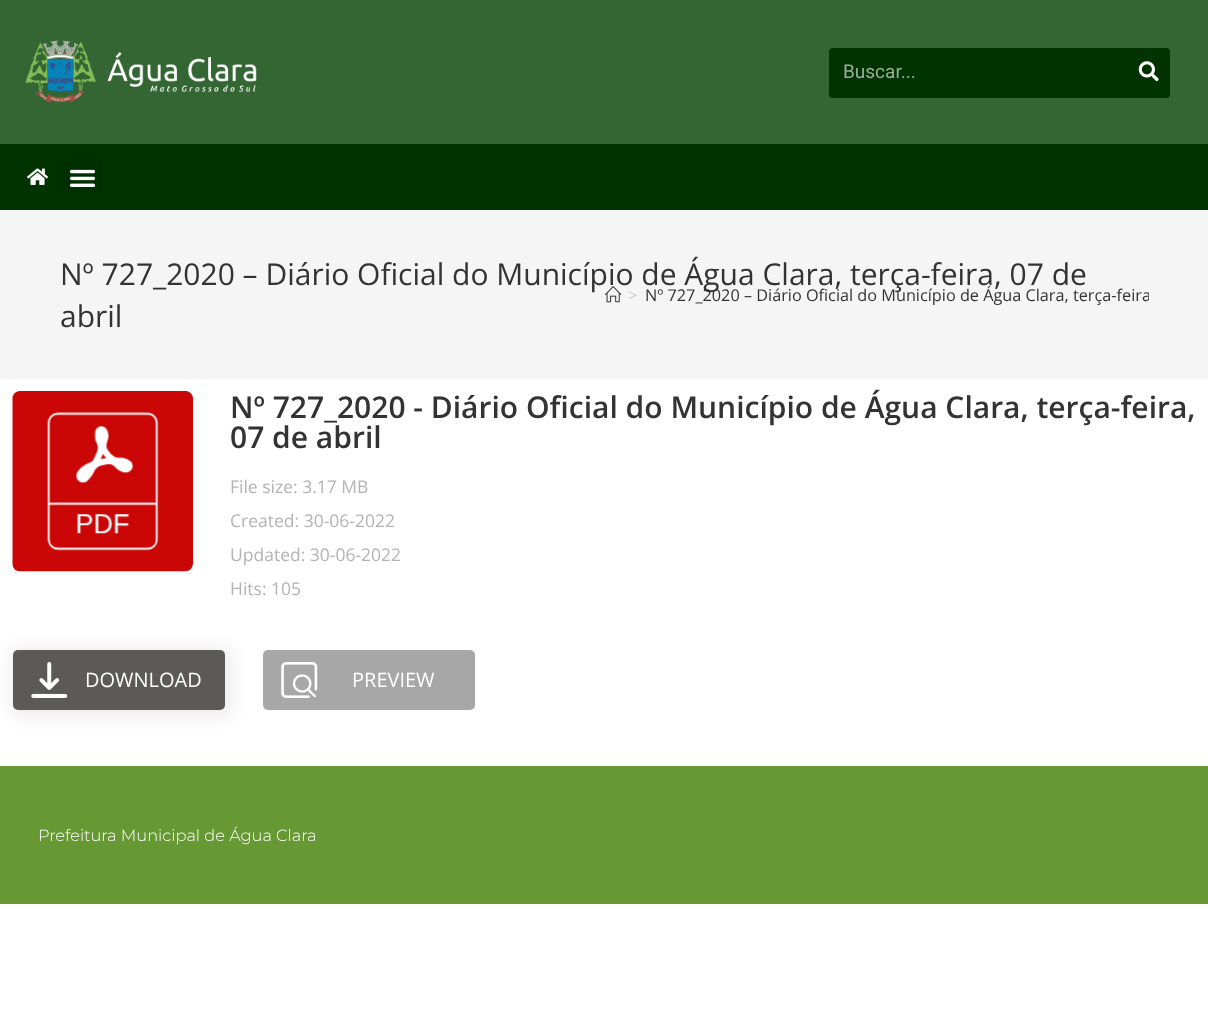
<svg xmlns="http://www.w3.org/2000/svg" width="1208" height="1018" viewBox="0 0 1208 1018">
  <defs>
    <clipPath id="clip1"><path d="M605 275h544v40H605z"/></clipPath>
  </defs>
  <rect width="100%" height="100%" fill="#fff"/>
  <path d="M0 0h1208v144H0z" fill="#363"/>
  <image x="25" y="40" width="232" height="63" href="img/1.png"/>
  <rect x="829" y="48" width="341" height="50" rx="4" fill="#030"/>
  <path d="M1128 48H1166C1168 48 1170 50 1170 52V94C1170 96 1168 98 1166 98H1128Z" fill="#030"/>
  <image x="1138" y="61" width="21" height="21" href="img/2.png"/>
  <path d="M0 144h1208v66H0z" fill="#030"/>
  <image x="27" y="168" width="21" height="17" href="img/3.png"/>
  <rect x="61" y="156" width="42" height="42" rx="4" fill="#003000"/>
  <image x="69" y="169" width="27" height="18" href="img/4.png"/>
  <path d="M0 210h1208v169H0z" fill="#f5f5f5"/>
  <rect x="13" y="391" width="180" height="180" rx="8" fill="#cb0606"/>
  <image x="12" y="391" width="181" height="181" href="img/6.png"/>
  <rect x="9" y="646" width="225" height="73" rx="11" fill="#f0f0f0" filter="blur(7.5px)"/>
  <rect x="13" y="650" width="212" height="60" rx="5" fill="#5c5a57"/>
  <image x="31" y="662" width="37" height="36" href="img/7.png"/>
  <rect x="263" y="650" width="212" height="60" rx="5" fill="#a7a7a7"/>
  <image x="281" y="662" width="37" height="36" href="img/8.png"/>
  <path d="M0 766h1208v138H0z" fill="#693"/>
  <text x="843" y="78" font-family="Roboto" font-size="19" fill="#99ad99">Buscar...</text>
  <g font-family="Open Sans" font-size="30" fill="#333">
    <text x="60" y="285">Nº 727_2020 – Diário Oficial do Município de Água Clara, terça-feira, 07 de</text>
    <text x="60" y="327">abril</text>
  </g>
  <image x="605" y="286" width="17" height="17" href="img/5.png"/>
  <text x="628" y="301" font-family="Open Sans" font-size="16.25" fill="#c6c6c6">&gt;</text>
  <g clip-path="url(#clip1)">
    <text x="645" y="301" font-family="Open Sans" font-size="16.25" fill="#333">Nº 727_2020 – Diário Oficial do Município de Água Clara, terça-feira</text>
  </g>
  <g font-family="Open Sans" font-size="30" font-weight="600" fill="#333">
    <text x="230" y="418">Nº 727_2020 - Diário Oficial do Município de Água Clara, terça-feira,</text>
    <text x="230" y="448">07 de abril</text>
  </g>
  <g font-family="Open Sans" font-size="17.5" fill="#b3b3b3">
    <text x="230" y="493">File size: 3.17 MB</text>
    <text x="230" y="527">Created: 30-06-2022</text>
    <text x="230" y="561">Updated: 30-06-2022</text>
    <text x="230" y="595">Hits: 105</text>
  </g>
  <g font-family="Open Sans" font-size="20" fill="#fff">
    <text x="85" y="687">DOWNLOAD</text>
    <text x="352" y="687">PREVIEW</text>
  </g>
  <text x="38" y="841" font-family="Montserrat" font-size="16.25" font-weight="300" fill="#fff">Prefeitura Municipal de Água Clara</text>
</svg>
